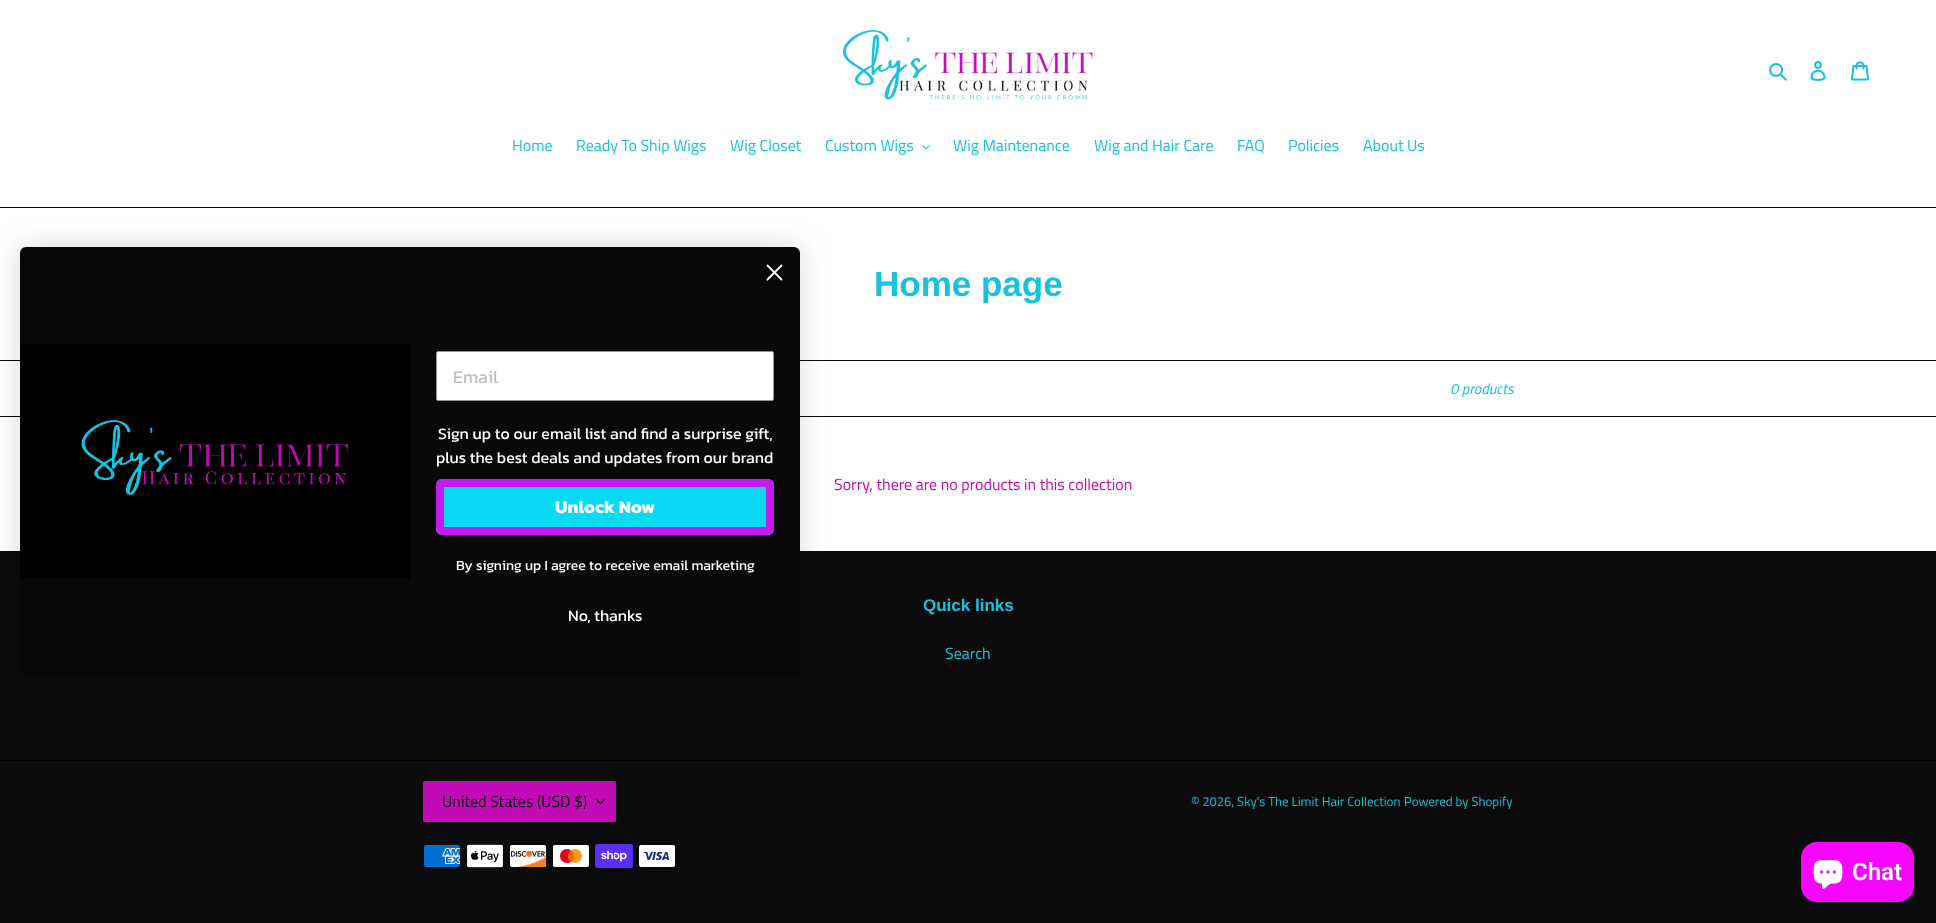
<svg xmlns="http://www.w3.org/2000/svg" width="1936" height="923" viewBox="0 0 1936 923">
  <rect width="100%" height="100%" fill="#fff"/>
  <image x="843" y="30" width="250" height="70" href="img/1.png"/>
  <image x="1769" y="63" width="18" height="18" href="img/2.png"/>
  <image x="1810" y="61" width="16" height="20" href="img/3.png"/>
  <image x="1851" y="61" width="18" height="20" href="img/4.png"/>
  <path d="M0 207h1936v1H0z" fill="#0c0b0b"/>
  <image x="922" y="145" width="8" height="5" href="img/5.png"/>
  <path d="M0 360h1936v1H0z" fill="#0c0b0b"/>
  <path d="M0 416h1936v1H0z" fill="#0c0b0b"/>
  <path d="M0 551h1936v372H0z" fill="#0c0b0b"/>
  <path d="M0 760h1936v1H0z" fill="#000"/>
  <rect x="423" y="781" width="193" height="41" rx="2" fill="#c30ab8"/>
  <image x="596" y="799" width="9" height="6" href="img/6.png"/>
  <rect x="423.5" y="781.5" width="192" height="40" rx="1.5" fill="none" stroke="#c30ab8"/>
  <image x="424" y="845" width="36" height="22" href="img/7.png"/>
  <image x="466" y="844" width="38" height="24" href="img/8.png"/>
  <image x="510" y="845" width="36" height="22" href="img/9.png"/>
  <image x="553" y="845" width="36" height="22" href="img/10.png"/>
  <image x="595" y="844" width="38" height="24" href="img/11.png"/>
  <image x="639" y="845" width="36" height="22" href="img/12.png"/>
  <rect x="20" y="247" width="780" height="430" rx="6" fill="#00000026" filter="blur(15px)"/>
  <rect x="20" y="247" width="780" height="430" rx="6" fill="#080808"/>
  <path d="M767.5 265.5L781.5 279.5M767.5 279.5L781.5 265.5Z" fill="none" stroke="#fff" stroke-width="1.8" stroke-linecap="round" stroke-linejoin="round"/>
  <image x="20" y="344" width="390" height="235" href="img/13.png"/>
  <rect x="436.5" y="351.5" width="337" height="49" rx="1.5" fill="#fff" stroke="#949596"/>
  <rect x="436" y="479" width="338" height="56" rx="6" fill="#08daf4"/>
  <rect x="440" y="483" width="330" height="48" rx="2" fill="none" stroke="#d10ef1f0" stroke-width="8"/>
  <rect x="1801" y="842" width="113" height="60" rx="16" fill="#f805ff"/>
  <image x="1813" y="860" width="30" height="29" href="img/14.png"/>
  <g font-family="Titillium Web" font-size="16" fill="#18c2dd">
    <text x="512" y="151">Home</text>
    <text x="576" y="151">Ready To Ship Wigs</text>
    <text x="730" y="151">Wig Closet</text>
    <text x="825" y="151">Custom Wigs</text>
    <text x="953" y="151">Wig Maintenance</text>
    <text x="1094" y="151">Wig and Hair Care</text>
    <text x="1237" y="151">FAQ</text>
    <text x="1288" y="151">Policies</text>
    <text x="1363" y="151">About Us</text>
  </g>
  <text x="874" y="296" font-family="Liberation Sans" font-size="35" font-weight="bold" fill="#18c2dd">Home page</text>
  <text x="1450" y="394" font-family="Titillium Web" font-size="15" font-style="italic" fill="#18c2dd">0 products</text>
  <text x="834" y="490" font-family="Titillium Web" font-size="16" fill="#c30ab8">Sorry, there are no products in this collection</text>
  <text x="923" y="611" font-family="Liberation Sans" font-size="17" font-weight="bold" fill="#18c2dd">Quick links</text>
  <text x="945" y="659" font-family="Titillium Web" font-size="16" fill="#18c2dd">Search</text>
  <text x="442" y="807" font-family="Titillium Web" font-size="16" fill="#000">United States (USD $)</text>
  <g font-family="Titillium Web" font-size="13" fill="#18c2dd">
    <text x="1191" y="806">© 2026, Sky's The Limit Hair Collection</text>
    <text x="1404" y="806">Powered by Shopify</text>
  </g>
  <text x="453" y="383" font-family="Kanit" font-size="18" fill="#bdc1c5">Email</text>
  <g font-family="Kanit" font-size="16" fill="#fff">
    <text x="438" y="439">Sign up to our email list and find a surprise gift,</text>
    <text x="436" y="463">plus the best deals and updates from our brand</text>
  </g>
  <text x="555" y="513" font-family="Kanit" font-size="18" font-weight="bold" fill="#fff">Unlock Now</text>
  <text x="456" y="570" font-family="Kanit" font-size="14" fill="#fff">By signing up I agree to receive email marketing</text>
  <text x="568" y="621" font-family="Kanit" font-size="16" fill="#fff">No, thanks</text>
  <text x="1852" y="880" font-family="Roboto" font-size="24" font-weight="600" fill="#fff">Chat</text>
</svg>
